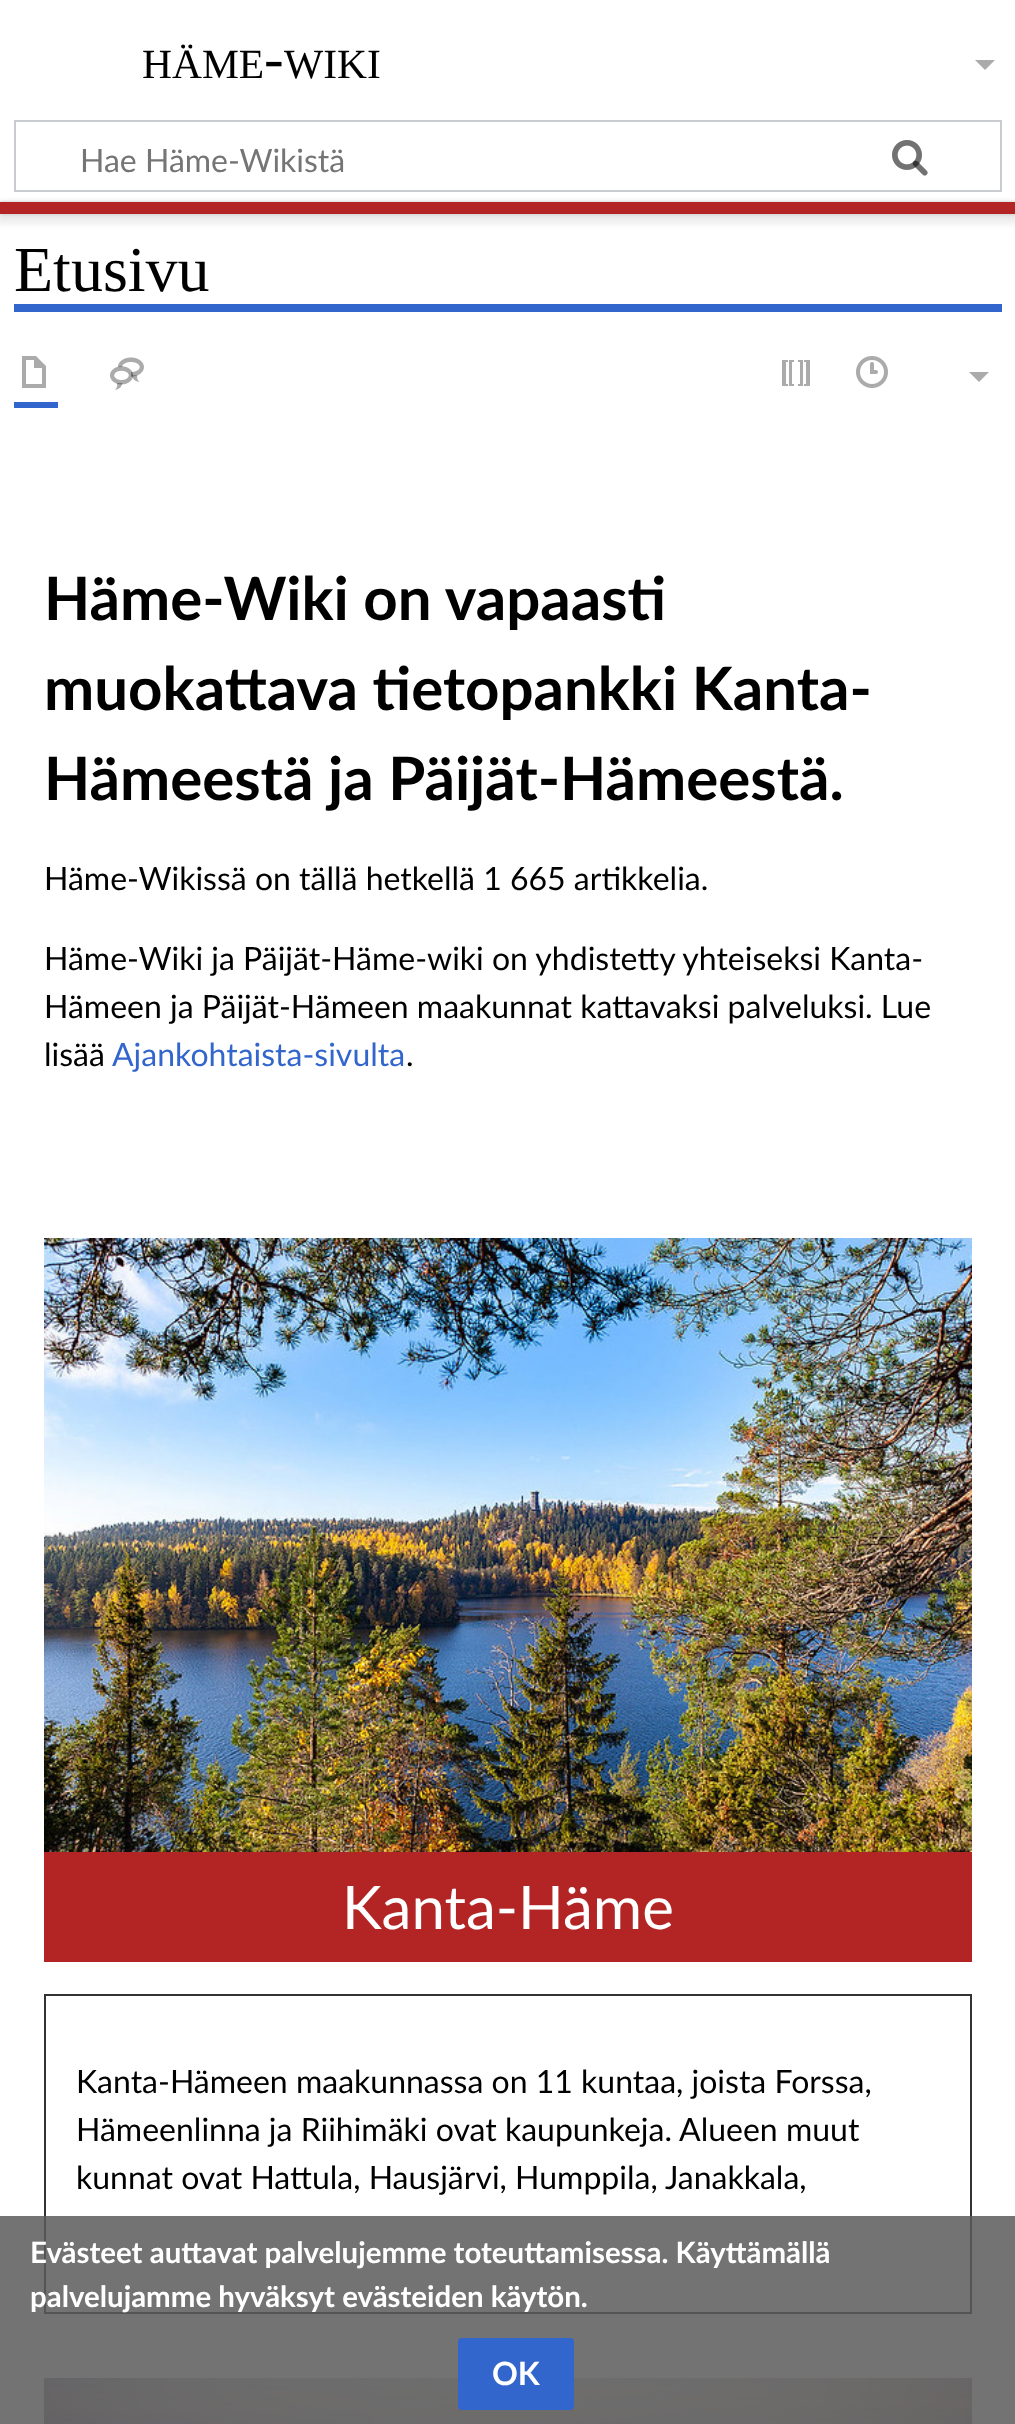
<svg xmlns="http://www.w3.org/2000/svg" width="1015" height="2424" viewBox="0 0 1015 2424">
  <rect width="100%" height="100%" fill="#fff"/>
  <path d="M995 60L985 70L975 60Z" fill="#ababab"/>
  <path d="M15 121h986v70H15z" fill="none" stroke="#c8ccd1" stroke-width="2"/>
  <image x="892" y="140" width="36" height="36" href="img/1.png"/>
  <image x="892" y="140" width="36" height="36" href="img/2.png"/>
  <path d="M0 202h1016v12H0z" fill="#00000033" filter="blur(2px)"/>
  <path d="M-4 204h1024v20H-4z" fill="#00000012" filter="blur(3px)"/>
  <path d="M0 202h1015v12H0z" fill="#b32424"/>
  <path d="M14 304h988v8H14z" fill="#36c"/>
  <path d="M14 402h44v6H14z" fill="#36c"/>
  <path d="M22 356V388H46V366L36 356ZM26 360H34V368H42V384H26Z" fill="#ababab"/>
  <image x="110" y="357" width="34" height="33" href="img/3.png"/>
  <image x="782" y="360" width="28" height="26" href="img/4.png"/>
  <image x="856" y="356" width="32" height="32" href="img/5.png"/>
  <path d="M989 372L979 382L969 372Z" fill="#ababab"/>
  <image x="44" y="1238" width="928" height="614" href="img/6.png"/>
  <path d="M44 1852h928v110H44z" fill="#b32424"/>
  <path d="M45 1995h926v318H45z" fill="none" stroke="#333" stroke-width="2"/>
  <image x="44" y="2378" width="928" height="46" href="img/7.png"/>
  <path d="M0 2216h1015v208H0z" fill="#5a5a5ad9"/>
  <rect x="459" y="2339" width="114" height="70" rx="3" fill="#36c" stroke="#36c" stroke-width="2"/>
  <text x="142" y="78" font-family="Liberation Serif" font-size="41.5" fill="#000">HÄME</text>
  <text x="264" y="78" font-family="Liberation Serif" font-size="59" fill="#000">-</text>
  <text x="284" y="78" font-family="Liberation Serif" font-size="41.5" fill="#000">WIKI</text>
  <text x="80" y="172" font-family="Lato" font-size="32" fill="#757575">Hae Häme-Wikistä</text>
  <text x="14" y="291" font-family="Liberation Serif" font-size="64" fill="#000">Etusivu</text>
  <g font-family="Lato" font-size="60" font-weight="bold" fill="#000">
    <text x="44" y="620">Häme-Wiki on vapaasti</text>
    <text x="44" y="710">muokattava tietopankki Kanta-</text>
    <text x="44" y="800">Hämeestä ja Päijät-Hämeestä.</text>
  </g>
  <g font-family="Lato" font-size="32" fill="#000">
    <text x="44" y="890">Häme-Wikissä on tällä hetkellä 1 665 artikkelia.</text>
    <text x="44" y="970">Häme-Wiki ja Päijät-Häme-wiki on yhdistetty yhteiseksi Kanta-</text>
    <text x="44" y="1018">Hämeen ja Päijät-Hämeen maakunnat kattavaksi palveluksi. Lue</text>
    <text x="44" y="1066">lisää</text>
  </g>
  <text x="112" y="1066" font-family="Lato" font-size="32" fill="#36c">Ajankohtaista-sivulta</text>
  <text x="406" y="1066" font-family="Lato" font-size="32" fill="#000">.</text>
  <text x="342" y="1929" font-family="Lato" font-size="60" fill="#fff">Kanta-Häme</text>
  <g font-family="Lato" font-size="32" fill="#000">
    <text x="76" y="2093">Kanta-Hämeen maakunnassa on 11 kuntaa, joista Forssa,</text>
    <text x="76" y="2141">Hämeenlinna ja Riihimäki ovat kaupunkeja. Alueen muut</text>
    <text x="76" y="2189">kunnat ovat Hattula, Hausjärvi, Humppila, Janakkala,</text>
  </g>
  <g font-family="Lato" font-size="29.45" font-weight="bold" fill="#fff">
    <text x="30" y="2263">Evästeet auttavat palvelujemme toteuttamisessa. Käyttämällä</text>
    <text x="30" y="2307">palvelujamme hyväksyt evästeiden käytön.</text>
  </g>
  <text x="492" y="2385" font-family="Lato" font-size="32" font-weight="bold" fill="#fff">OK</text>
</svg>
